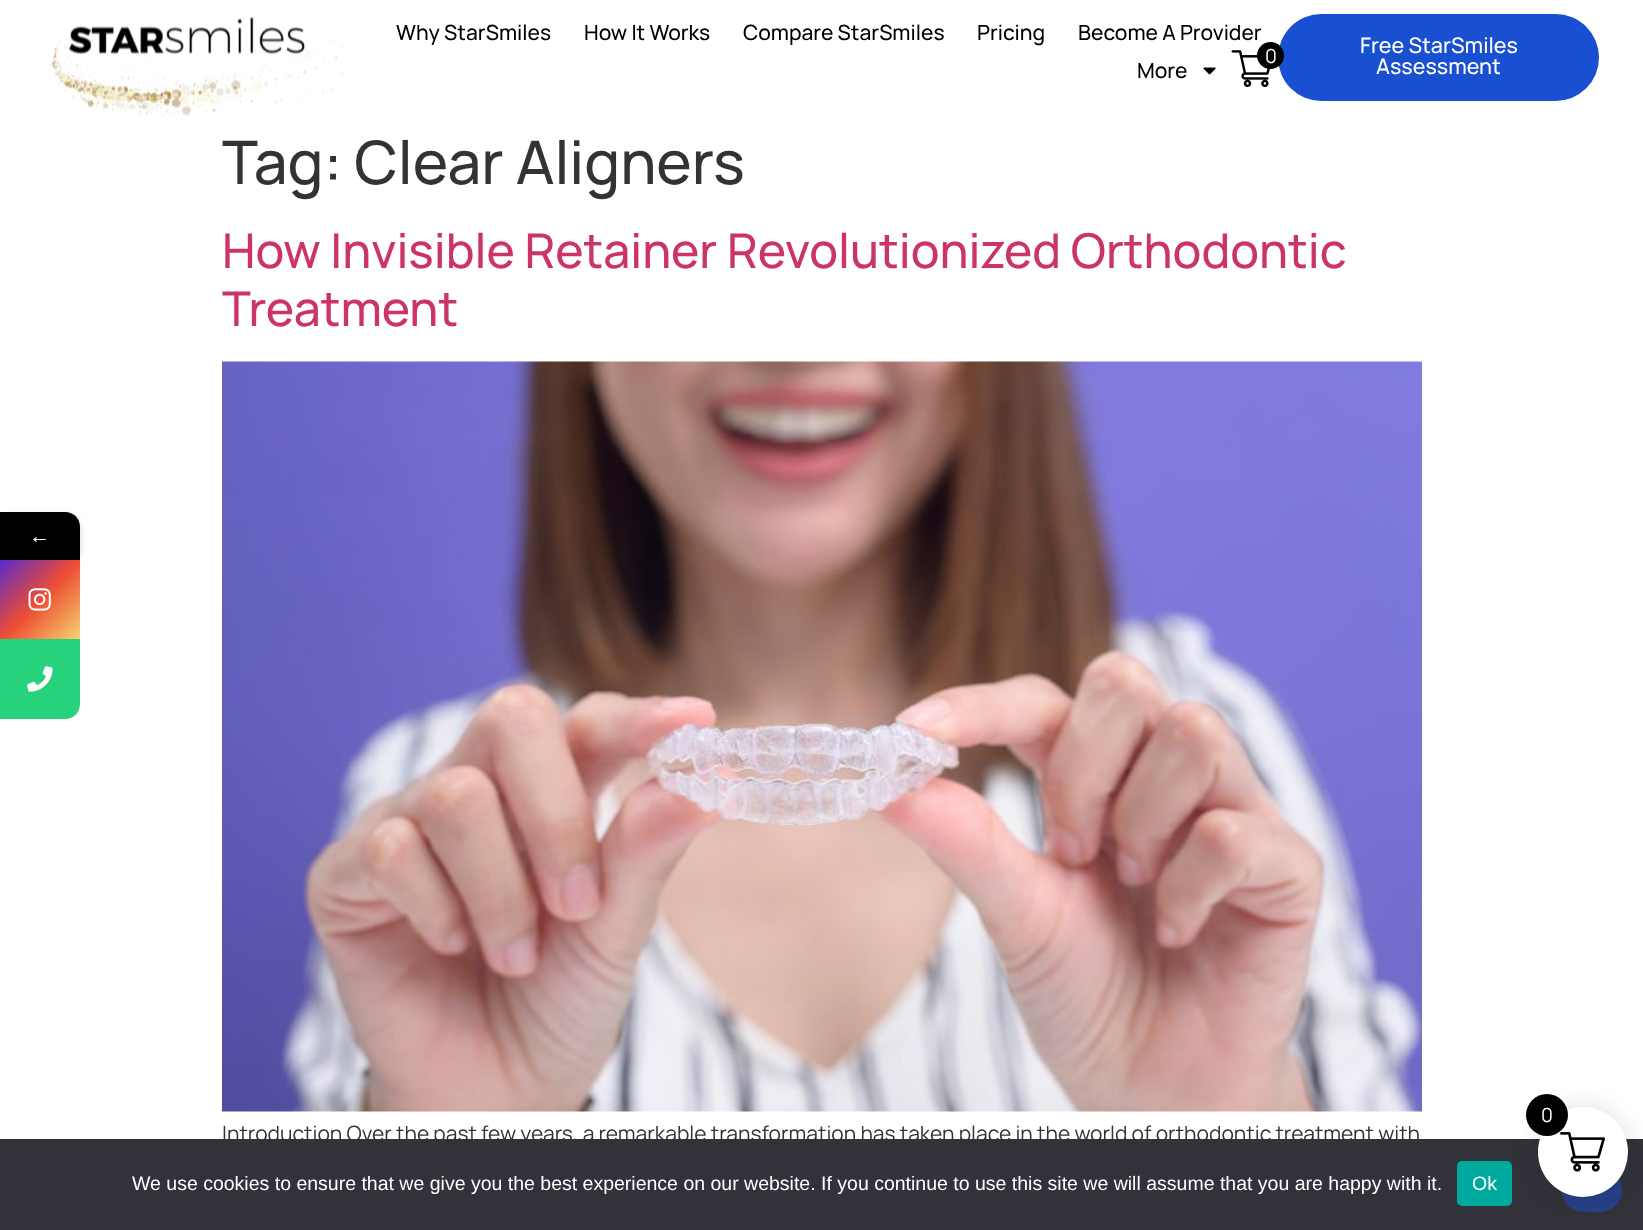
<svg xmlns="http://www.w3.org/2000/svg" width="1643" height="1230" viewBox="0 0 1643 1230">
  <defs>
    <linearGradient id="g1" gradientUnits="userSpaceOnUse" x1="0" y1="560" x2="80" y2="639"><stop offset="0" stop-color="#582bcd"/><stop offset="0.5" stop-color="#ed4c33"/><stop offset="1" stop-color="#f7d36f"/></linearGradient>
  </defs>
  <rect width="100%" height="100%" fill="#fff"/>
  <image x="49" y="17" width="295" height="100" href="img/1.png"/>
  <image x="1231" y="50" width="40" height="38" href="img/2.png"/>
  <rect x="1278" y="14" width="321" height="87" rx="43.5" fill="#1950d1"/>
  <circle cx="1270.5" cy="55.5" r="13.5" fill="#000"/>
  <image x="1203" y="67" width="13" height="8" href="img/3.png"/>
  <rect y="516" width="80" height="48" rx="15" fill="#00000029" filter="blur(4.5px)"/>
  <path d="M0 512H65C73.5 512 80 518.5 80 527V560H0Z" fill="#000"/>
  <path d="M0 560h80v79H0z" fill="url(#g1)"/>
  <image x="28" y="588" width="23" height="23" href="img/4.png"/>
  <path d="M0 639H80V704C80 712.5 73.5 719 65 719H0Z" fill="#26d37c"/>
  <image x="27" y="666" width="26" height="26" href="img/5.png"/>
  <image x="222" y="361" width="1200" height="751" href="img/6.png"/>
  <g font-family="Manrope" font-size="21" font-weight="500" fill="#000">
    <text x="396" y="40">Why StarSmiles</text>
    <text x="584" y="40">How It Works</text>
    <text x="743" y="40">Compare StarSmiles</text>
    <text x="977" y="40">Pricing</text>
    <text x="1078" y="40">Become A Provider</text>
  </g>
  <text x="1265" y="63" font-family="Manrope" font-size="19.5" fill="#fff">0</text>
  <text x="1137" y="78" font-family="Manrope" font-size="21" font-weight="500" fill="#000">More</text>
  <g font-family="Manrope" font-size="21.5" font-weight="500" fill="#fff">
    <text x="1360" y="53">Free StarSmiles</text>
    <text x="1376" y="74">Assessment</text>
  </g>
  <text x="29" y="543" font-family="Liberation Serif" font-size="21" fill="#fff">←</text>
  <text x="222" y="184" font-family="Manrope" font-size="60" font-weight="500" fill="#333">Tag: Clear Aligners</text>
  <g font-family="Manrope" font-size="48" font-weight="500" fill="#c36">
    <text x="222" y="268">How Invisible Retainer Revolutionized Orthodontic</text>
    <text x="222" y="326">Treatment</text>
  </g>
  <text x="222" y="1141" font-family="Manrope" font-size="21" fill="#333">Introduction Over the past few years, a remarkable transformation has taken place in the world of orthodontic treatment with</text>
  <path d="M0 1139h1643v91H0z" fill="#32323a"/>
  <text x="132" y="1190" font-family="Liberation Sans" font-size="19.5" fill="#fff">We use cookies to ensure that we give you the best experience on our website. If you continue to use this site we will assume that you are happy with it.</text>
  <rect x="1457" y="1161" width="55" height="45" rx="5" fill="#00a99d"/>
  <text x="1472" y="1190" font-family="Liberation Sans" font-size="19.5" fill="#fff">Ok</text>
  <rect x="1562" y="1169" width="60" height="43" rx="21.5" fill="#264186"/>
  <rect x="1535" y="1104" width="96" height="96" rx="48" fill="#0000001a" filter="blur(11px)"/>
  <circle cx="1583" cy="1152" r="45" fill="#fff"/>
  <image x="1560" y="1132" width="45" height="40" href="img/7.png"/>
  <circle cx="1547" cy="1115" r="21" fill="#000"/>
  <text x="1541" y="1122" font-family="Manrope" font-size="19.5" fill="#fff">0</text>
</svg>
